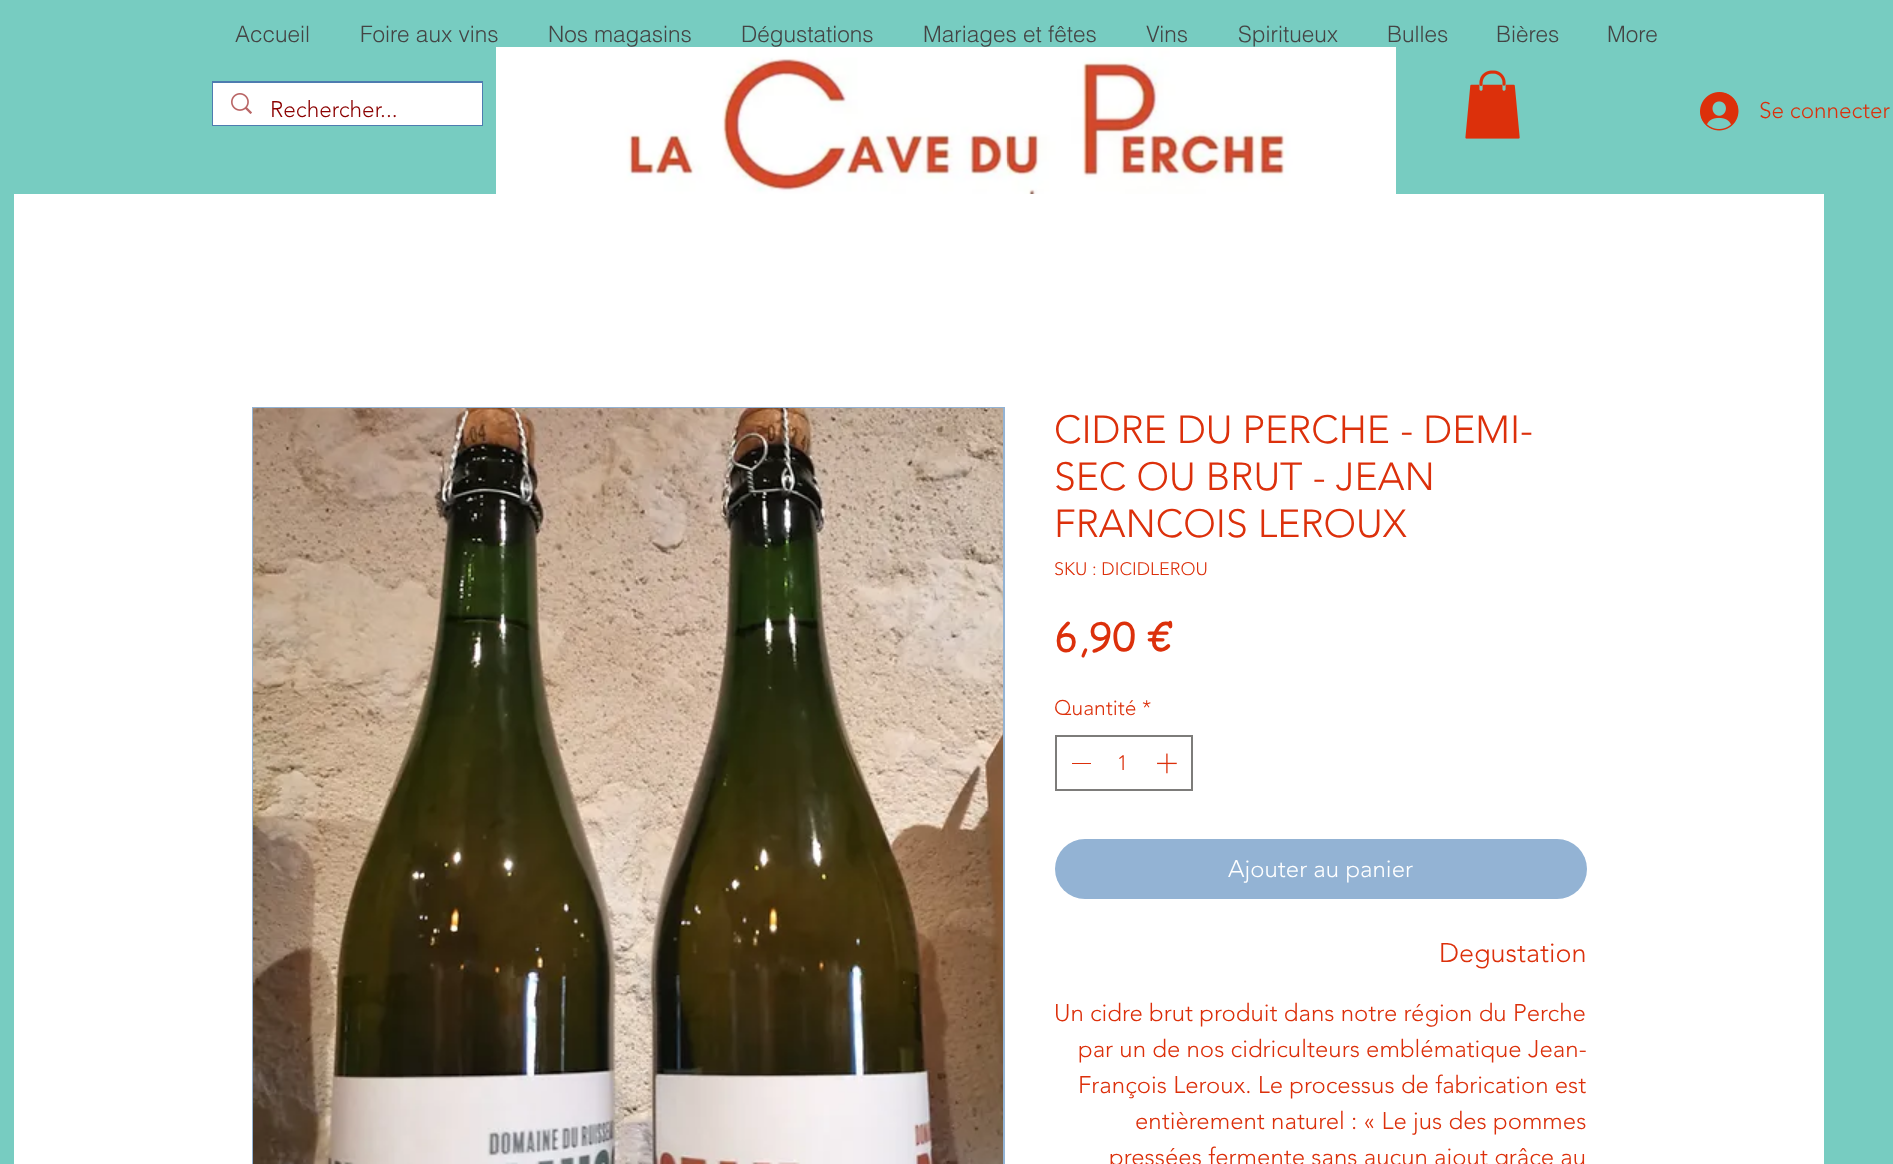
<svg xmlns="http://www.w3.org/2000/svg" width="1893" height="1164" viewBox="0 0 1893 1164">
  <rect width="100%" height="100%" fill="#77ccc1"/>
  <path d="M213 82h269v43H213z" fill="none" stroke="#4e7cb0" stroke-width="2"/>
  <path d="M213 83h269v42H213z" fill="#fff"/>
  <image x="231" y="93" width="21" height="21" href="img/1.png"/>
  <image x="496" y="47" width="900" height="147" href="img/2.png"/>
  <image x="1465" y="70" width="55" height="69" href="img/3.png"/>
  <image x="1700" y="92" width="39" height="39" href="img/4.png"/>
  <path d="M14 194h1810v970H14z" fill="#fff"/>
  <path d="M253 408h751v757H253z" fill="none" stroke="#93b3d4" stroke-width="2"/>
  <image x="253" y="408" width="750" height="756" href="img/5.png"/>
  <path d="M1056 736h136v54H1056z" fill="none" stroke="#7d7c7a" stroke-width="2"/>
  <path d="M1072 763h19v1H1072z" fill="#dc300b"/>
  <image x="1157" y="753" width="20" height="21" href="img/6.png"/>
  <rect x="1055" y="839" width="532" height="60" rx="30" fill="#93b3d4"/>
  <g font-family="helvetica" font-size="22.5" font-weight="300" fill="#444">
    <text x="235" y="42">Accueil</text>
    <text x="360" y="42">Foire aux vins</text>
    <text x="548" y="42">Nos magasins</text>
    <text x="741" y="42">Dégustations</text>
    <text x="923" y="42">Mariages et fêtes</text>
    <text x="1146" y="42">Vins</text>
    <text x="1238" y="42">Spiritueux</text>
    <text x="1387" y="42">Bulles</text>
    <text x="1496" y="42">Bières</text>
    <text x="1607" y="42">More</text>
  </g>
  <text x="270" y="117" font-family="'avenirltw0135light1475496'" font-size="22.5" font-weight="300" fill="#8b0000">Rechercher...</text>
  <text x="1759" y="118" font-family="'avenirltw0135light1475496'" font-size="22.5" font-weight="300" fill="#dc300b">Se connecter</text>
  <g font-family="'avenirltw0135light1475496'" font-size="39" font-weight="300" fill="#dc300b">
    <text x="1054" y="443">CIDRE DU PERCHE - DEMI-</text>
    <text x="1054" y="490">SEC OU BRUT - JEAN</text>
    <text x="1054" y="537">FRANCOIS LEROUX</text>
  </g>
  <text x="1054" y="575" font-family="'avenirltw0135light1475496'" font-size="18" font-weight="300" fill="#dc300b">SKU : DICIDLEROU</text>
  <text x="1054" y="651" font-family="'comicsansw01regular'" font-size="39" fill="#dc300b">6,90 €</text>
  <g font-family="'avenirltw0135light1475496'" font-size="21" font-weight="300" fill="#dc300b">
    <text x="1054" y="715">Quantité</text>
    <text x="1142" y="715">*</text>
    <text x="1117" y="770">1</text>
  </g>
  <text x="1228" y="877" font-family="'avenirltw0135light1475496'" font-size="24" font-weight="300" fill="#fff">Ajouter au panier</text>
  <text x="1439" y="962" font-family="'avenirltw0135light1475496'" font-size="27" font-weight="300" fill="#dc300b">Degustation</text>
  <g font-family="'avenirltw0135light1475496'" font-size="24" font-weight="300" fill="#dc300b">
    <text x="1054" y="1021">Un cidre brut produit dans notre région du Perche</text>
    <text x="1078" y="1057">par un de nos cidriculteurs emblématique Jean-</text>
    <text x="1078" y="1093">François Leroux. Le processus de fabrication est</text>
    <text x="1135" y="1129">entièrement naturel : « Le jus des pommes</text>
    <text x="1109" y="1165">pressées fermente sans aucun ajout grâce au</text>
  </g>
</svg>
